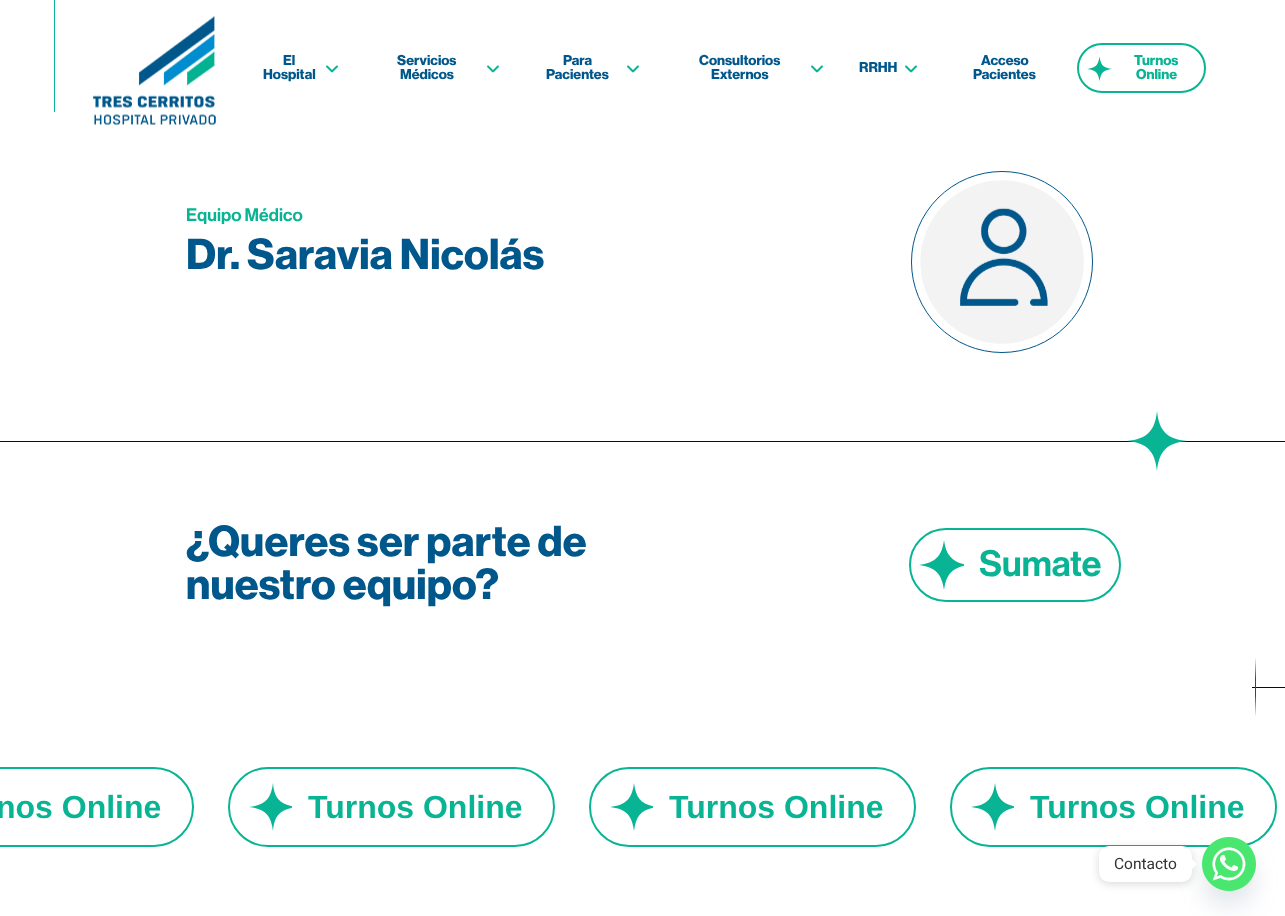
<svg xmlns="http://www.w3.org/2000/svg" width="1285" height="916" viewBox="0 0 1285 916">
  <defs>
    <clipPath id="clip1"><path d="M919 540h45v50H919z"/></clipPath>
    <clipPath id="clip2"><path d="M249 783h43v48H249z"/></clipPath>
    <clipPath id="clip3"><path d="M610 783h43v48H610z"/></clipPath>
    <clipPath id="clip4"><path d="M971 783h43v48H971z"/></clipPath>
  </defs>
  <rect width="100%" height="100%" fill="#fff"/>
  <path d="M54 0h1v112H54z" fill="#08b493"/>
  <image x="93" y="16" width="123" height="109" href="img/1.png"/>
  <image x="326" y="65" width="12" height="8" href="img/2.png"/>
  <image x="487" y="65" width="12" height="8" href="img/2.png"/>
  <image x="627" y="65" width="12" height="8" href="img/2.png"/>
  <image x="811" y="65" width="12" height="8" href="img/2.png"/>
  <image x="905" y="65" width="12" height="8" href="img/2.png"/>
  <rect x="1078" y="44" width="127" height="48" rx="24" fill="none" stroke="#08b493" stroke-width="2"/>
  <image x="1087" y="56" width="25" height="25" href="img/3.png"/>
  <image x="920" y="180" width="164" height="164" href="img/4.png"/>
  <circle cx="1002" cy="262" r="90.5" fill="none" stroke="#00578b"/>
  <path d="M0 441h1285v1H0z" fill="#0d0b0b"/>
  <path d="M1157 471C1159 451 1167 443 1187 441C1167 439 1159 431 1157 411C1155 431 1147 439 1127 441C1147 443 1155 451 1157 471Z" fill="#08b493"/>
  <rect x="910" y="529" width="210" height="72" rx="36" fill="none" stroke="#08b493" stroke-width="2"/>
  <g clip-path="url(#clip1)">
    <path d="M944 590C946 574 953 567 969 565C953 563 946 556 944 540C942 556 935 563 919 565C935 567 942 574 944 590Z" fill="#08b493"/>
  </g>
  <path d="M1252 687h33v1H1252z" fill="#0d0b0b"/>
  <path d="M1255 717L1256 695V687V679L1255 657V679V687V695Z" fill="#00578b"/>
  <rect x="-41" y="768" width="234" height="78" rx="39" fill="none" stroke="#08b493" stroke-width="2"/>
  <rect x="229" y="768" width="325" height="78" rx="39" fill="none" stroke="#08b493" stroke-width="2"/>
  <g clip-path="url(#clip2)">
    <path d="M273 831C274 815 281 809 297 807C281 805 274 799 273 783C271 799 265 805 249 807C265 809 271 815 273 831Z" fill="#08b493"/>
  </g>
  <rect x="590" y="768" width="325" height="78" rx="39" fill="none" stroke="#08b493" stroke-width="2"/>
  <g clip-path="url(#clip3)">
    <path d="M634 831C636 815 642 809 658 807C642 805 636 799 634 783C632 799 626 805 610 807C626 809 632 815 634 831Z" fill="#08b493"/>
  </g>
  <rect x="951" y="768" width="325" height="78" rx="39" fill="none" stroke="#08b493" stroke-width="2"/>
  <g clip-path="url(#clip4)">
    <path d="M995 831C997 815 1003 809 1019 807C1003 805 997 799 995 783C993 799 987 805 971 807C987 809 993 815 995 831Z" fill="#08b493"/>
  </g>
  <rect x="1202" y="853" width="54" height="54" rx="27" fill="#49687e29" filter="blur(12px)"/>
  <image x="1202" y="837" width="54" height="54" href="img/5.png"/>
  <rect x="1099" y="848" width="93" height="36" rx="10" fill="#00000026" filter="blur(4px)"/>
  <rect x="1099" y="846" width="93" height="36" rx="10" fill="#fff"/>
  <path d="M1192 869V859L1197 864Z" fill="#fff"/>
  <g font-family="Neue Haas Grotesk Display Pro" font-size="14" font-weight="bold" fill="#00578b">
    <text x="283" y="65">El</text>
    <text x="263" y="79">Hospital</text>
    <text x="397" y="65">Servicios</text>
    <text x="400" y="79">Médicos</text>
    <text x="563" y="65">Para</text>
    <text x="546" y="79">Pacientes</text>
    <text x="699" y="65">Consultorios</text>
    <text x="711" y="79">Externos</text>
    <text x="859" y="72">RRHH</text>
    <text x="981" y="65">Acceso</text>
    <text x="973" y="79">Pacientes</text>
  </g>
  <g font-family="Neue Haas Grotesk Display Pro" font-size="14" font-weight="bold" fill="#08b493">
    <text x="1134" y="65">Turnos</text>
    <text x="1136" y="79">Online</text>
  </g>
  <text x="186" y="221" font-family="Neue Haas Grotesk Display Pro" font-size="17.75" font-weight="600" letter-spacing="0.1" fill="#08b493">Equipo Médico</text>
  <g font-family="Neue Haas Grotesk Display Pro" font-size="42.5" font-weight="bold" letter-spacing="0.25" fill="#00578b">
    <text x="186" y="269">Dr. Saravia Nicolás</text>
    <text x="186" y="556">¿Queres ser parte de</text>
    <text x="186" y="599">nuestro equipo?</text>
  </g>
  <text x="979" y="576" font-family="Neue Haas Grotesk Display Pro" font-size="36" font-weight="600" fill="#08b493">Sumate</text>
  <g font-family="Liberation Sans" font-size="32" font-weight="bold" fill="#08b493">
    <text x="-4" y="818">nos Online</text>
    <text x="308" y="818">Turnos Online</text>
    <text x="669" y="818">Turnos Online</text>
    <text x="1030" y="818">Turnos Online</text>
  </g>
  <text x="1114" y="869" font-family="Roboto" font-size="15.5" fill="#333">Contacto</text>
</svg>
